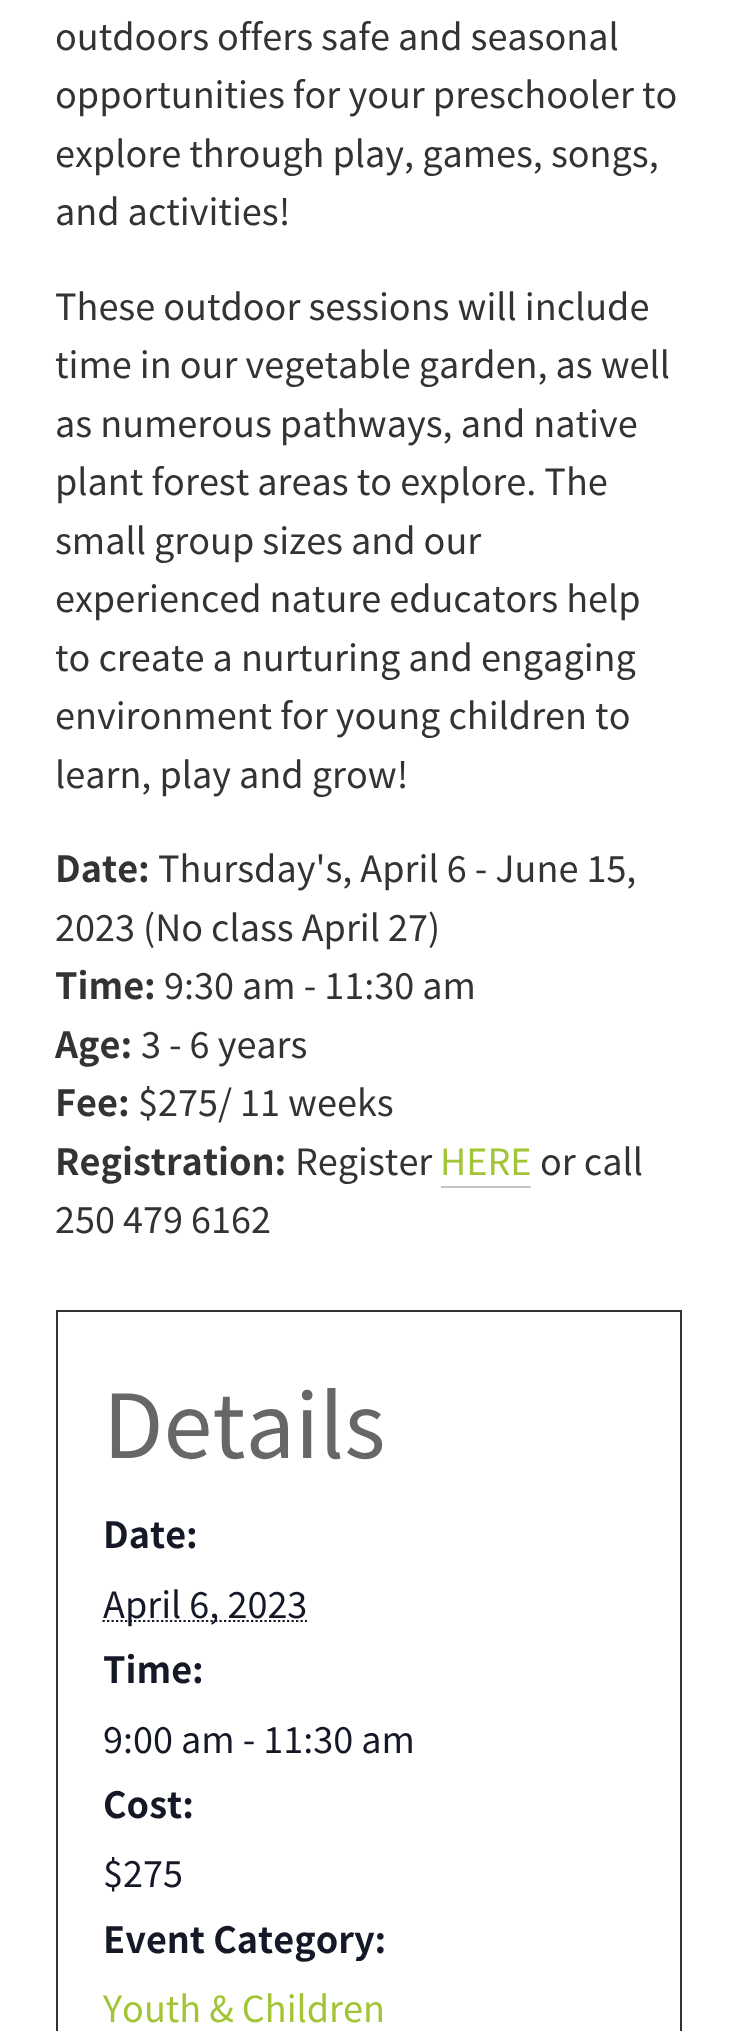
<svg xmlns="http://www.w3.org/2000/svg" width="737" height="2031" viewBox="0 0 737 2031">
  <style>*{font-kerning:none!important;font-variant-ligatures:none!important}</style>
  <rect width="100%" height="100%" fill="#fff"/>
  <path d="M441 1186h90v2H441z" fill="#c5c5c5"/>
  <path d="M57 1311h624v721H57z" fill="none" stroke="#333" stroke-width="2"/>
  <path d="M102.5 1621H307" fill="none" stroke="#141827" stroke-width="2.2" stroke-dasharray="2.25 2.25"/>
  <g font-family="Noto Sans SC" font-size="36" fill="#333">
    <text x="55" y="50">outdoors offers safe and seasonal</text>
    <text x="55" y="108">opportunities for your preschooler to</text>
    <text x="55" y="167">explore through play, games, songs,</text>
    <text x="55" y="225">and activities!</text>
    <text x="55" y="320">These outdoor sessions will include</text>
    <text x="55" y="378">time in our vegetable garden, as well</text>
    <text x="55" y="437">as numerous pathways, and native</text>
    <text x="55" y="495">plant forest areas to explore. The</text>
    <text x="55" y="554">small group sizes and our</text>
    <text x="55" y="612">experienced nature educators help</text>
    <text x="55" y="671">to create a nurturing and engaging</text>
    <text x="55" y="729">environment for young children to</text>
    <text x="55" y="788">learn, play and grow!</text>
  </g>
  <text x="55" y="882" font-family="Noto Sans SC" font-size="36" font-weight="bold" fill="#333">Date:</text>
  <g font-family="Noto Sans SC" font-size="36" fill="#333">
    <text x="158" y="882">Thursday's, April 6 - June 15,</text>
    <text x="55" y="941">2023 (No class April 27)</text>
  </g>
  <text x="55" y="999" font-family="Noto Sans SC" font-size="36" font-weight="bold" fill="#333">Time:</text>
  <text x="164" y="999" font-family="Noto Sans SC" font-size="36" fill="#333">9:30 am - 11:30 am</text>
  <text x="55" y="1058" font-family="Noto Sans SC" font-size="36" font-weight="bold" fill="#333">Age:</text>
  <text x="141" y="1058" font-family="Noto Sans SC" font-size="36" fill="#333">3 - 6 years</text>
  <text x="55" y="1116" font-family="Noto Sans SC" font-size="36" font-weight="bold" fill="#333">Fee:</text>
  <text x="138" y="1116" font-family="Noto Sans SC" font-size="36" fill="#333">$275/ 11 weeks</text>
  <text x="55" y="1175" font-family="Noto Sans SC" font-size="36" font-weight="bold" fill="#333">Registration:</text>
  <text x="295" y="1175" font-family="Noto Sans SC" font-size="36" fill="#333">Register</text>
  <text x="440" y="1175" font-family="Noto Sans SC" font-size="36" fill="#a1c536">HERE</text>
  <g font-family="Noto Sans SC" font-size="36" fill="#333">
    <text x="540" y="1175">or call</text>
    <text x="55" y="1233">250 479 6162</text>
  </g>
  <text x="103" y="1458" font-family="Noto Sans SC" font-size="88" fill="#676767">Details</text>
  <text x="103" y="1548" font-family="Noto Sans SC" font-size="36" font-weight="bold" fill="#141827">Date:</text>
  <text x="103" y="1618" font-family="Noto Sans SC" font-size="36" fill="#141827">April 6, 2023</text>
  <text x="103" y="1683" font-family="Noto Sans SC" font-size="36" font-weight="bold" fill="#141827">Time:</text>
  <text x="103" y="1753" font-family="Noto Sans SC" font-size="36" fill="#141827">9:00 am - 11:30 am</text>
  <text x="103" y="1818" font-family="Noto Sans SC" font-size="36" font-weight="bold" fill="#141827">Cost:</text>
  <text x="103" y="1887" font-family="Noto Sans SC" font-size="36" fill="#141827">$275</text>
  <text x="103" y="1953" font-family="Noto Sans SC" font-size="36" font-weight="bold" fill="#141827">Event Category:</text>
  <text x="103" y="2022" font-family="Noto Sans SC" font-size="36" fill="#a1c536">Youth &amp; Children</text>
</svg>
